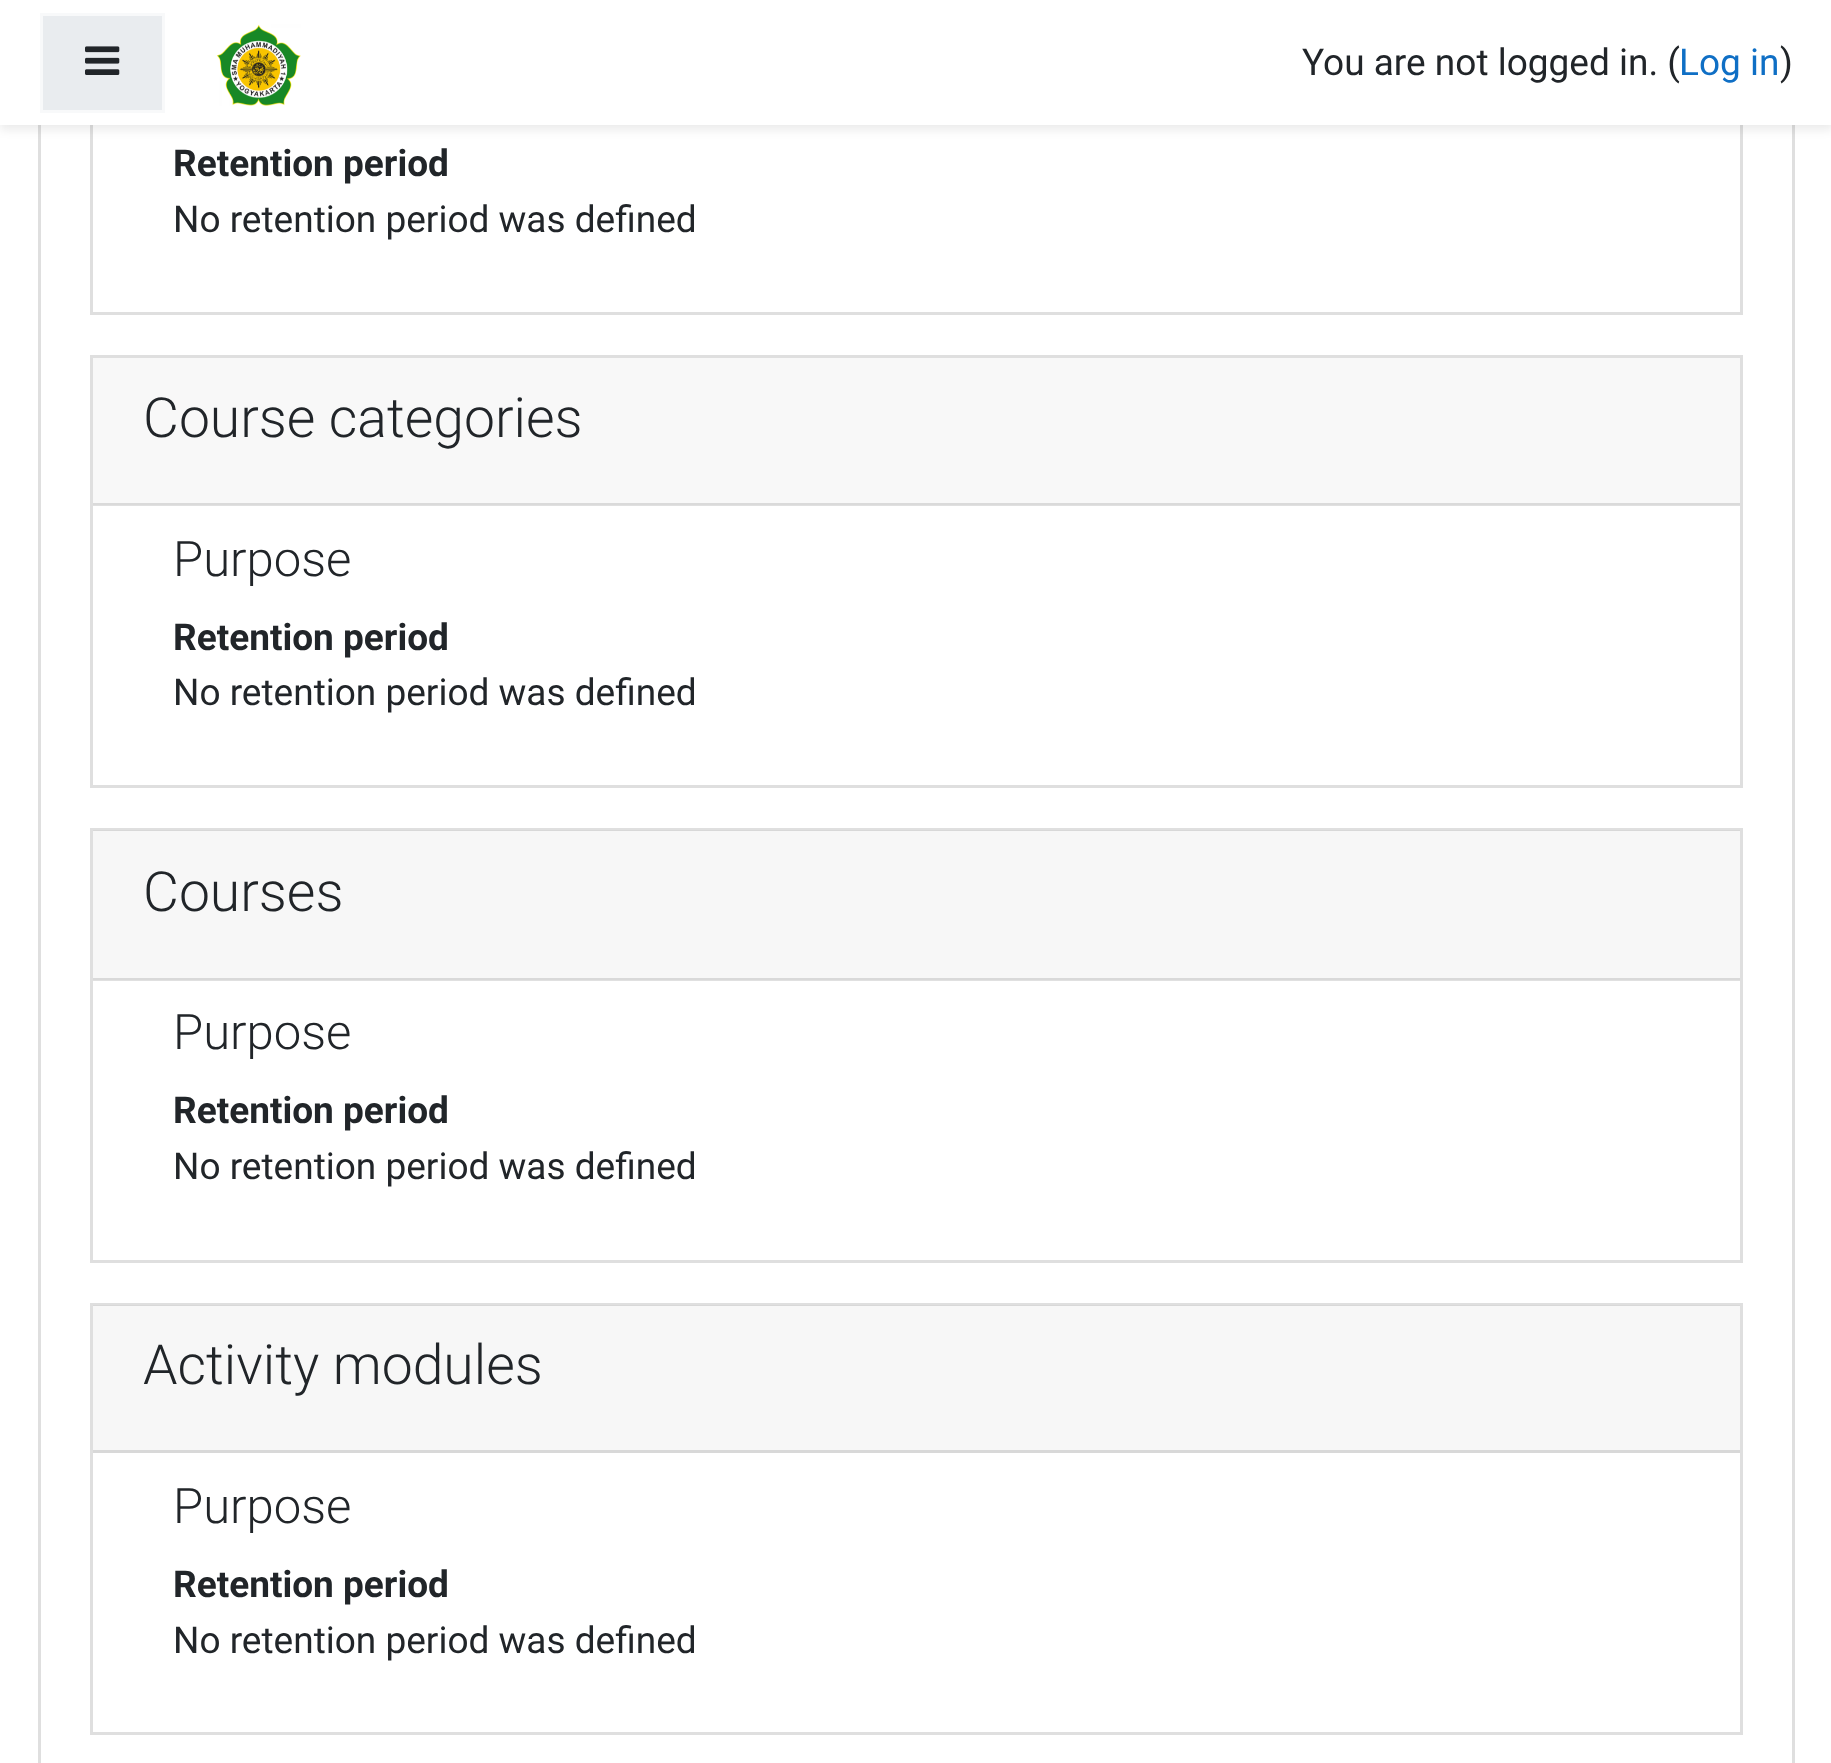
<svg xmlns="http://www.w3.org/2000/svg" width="1831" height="1763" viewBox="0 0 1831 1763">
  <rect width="100%" height="100%" fill="#fff"/>
  <path d="M93 505h1647v1H93z" fill="#e0e0e0"/>
  <path d="M39.5 -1.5h1754v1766H39.5z" fill="none" stroke="#dfdfdf" stroke-width="3"/>
  <path d="M91.5 -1.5h1650v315H91.5z" fill="none" stroke="#dfdfdf" stroke-width="3"/>
  <path d="M0 5h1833v125H0z" fill="#00000014" filter="blur(5px)"/>
  <path d="M0 0h1831v125H0z" fill="#fff"/>
  <path d="M41.5 14.5h122v97H41.5z" fill="#e9ecef" stroke="#f8f9fa" stroke-width="3"/>
  <image x="85" y="46" width="35" height="29" href="img/1.png"/>
  <image x="216" y="24" width="85" height="82" href="img/2.png"/>
  <path d="M91.5 356.5h1650v430H91.5z" fill="none" stroke="#dfdfdf" stroke-width="3"/>
  <path d="M93 358h1647v145H93z" fill="#f8f8f8"/>
  <path d="M93 503h1647v2H93z" fill="#dadada"/>
  <path d="M91.5 829.5h1650v432H91.5z" fill="none" stroke="#dfdfdf" stroke-width="3"/>
  <path d="M93 830h1647v150H93z" fill="#00000008"/>
  <path d="M93 978h1647v3H93z" fill="#0000001f"/>
  <path d="M91.5 1304.5h1650v429H91.5z" fill="none" stroke="#dfdfdf" stroke-width="3"/>
  <path d="M93 1305h1647v145H93z" fill="#00000008"/>
  <path d="M93 1450h1647v3H93z" fill="#d8d8d8"/>
  <text x="1302" y="75" font-family="Roboto" font-size="37" fill="#212529">You are not logged in. (</text>
  <text x="1679" y="75" font-family="Roboto" font-size="37" fill="#0f6fc5">Log in</text>
  <text x="1780" y="75" font-family="Roboto" font-size="37" fill="#212529">)</text>
  <text x="173" y="176" font-family="Roboto" font-size="37" font-weight="bold" fill="#212529">Retention period</text>
  <text x="173" y="232" font-family="Roboto" font-size="37" fill="#212529">No retention period was defined</text>
  <text x="143" y="437" font-family="Roboto" font-size="55.25" font-weight="300" fill="#212529">Course categories</text>
  <text x="173" y="576" font-family="Roboto" font-size="49" font-weight="300" fill="#212529">Purpose</text>
  <text x="173" y="650" font-family="Roboto" font-size="37" font-weight="bold" fill="#212529">Retention period</text>
  <text x="173" y="705" font-family="Roboto" font-size="37" fill="#212529">No retention period was defined</text>
  <text x="143" y="911" font-family="Roboto" font-size="55.25" font-weight="300" fill="#212529">Courses</text>
  <text x="173" y="1049" font-family="Roboto" font-size="49" font-weight="300" fill="#212529">Purpose</text>
  <text x="173" y="1123" font-family="Roboto" font-size="37" font-weight="bold" fill="#212529">Retention period</text>
  <text x="173" y="1179" font-family="Roboto" font-size="37" fill="#212529">No retention period was defined</text>
  <text x="143" y="1384" font-family="Roboto" font-size="55.25" font-weight="300" fill="#212529">Activity modules</text>
  <text x="173" y="1523" font-family="Roboto" font-size="49" font-weight="300" fill="#212529">Purpose</text>
  <text x="173" y="1597" font-family="Roboto" font-size="37" font-weight="bold" fill="#212529">Retention period</text>
  <text x="173" y="1653" font-family="Roboto" font-size="37" fill="#212529">No retention period was defined</text>
</svg>
